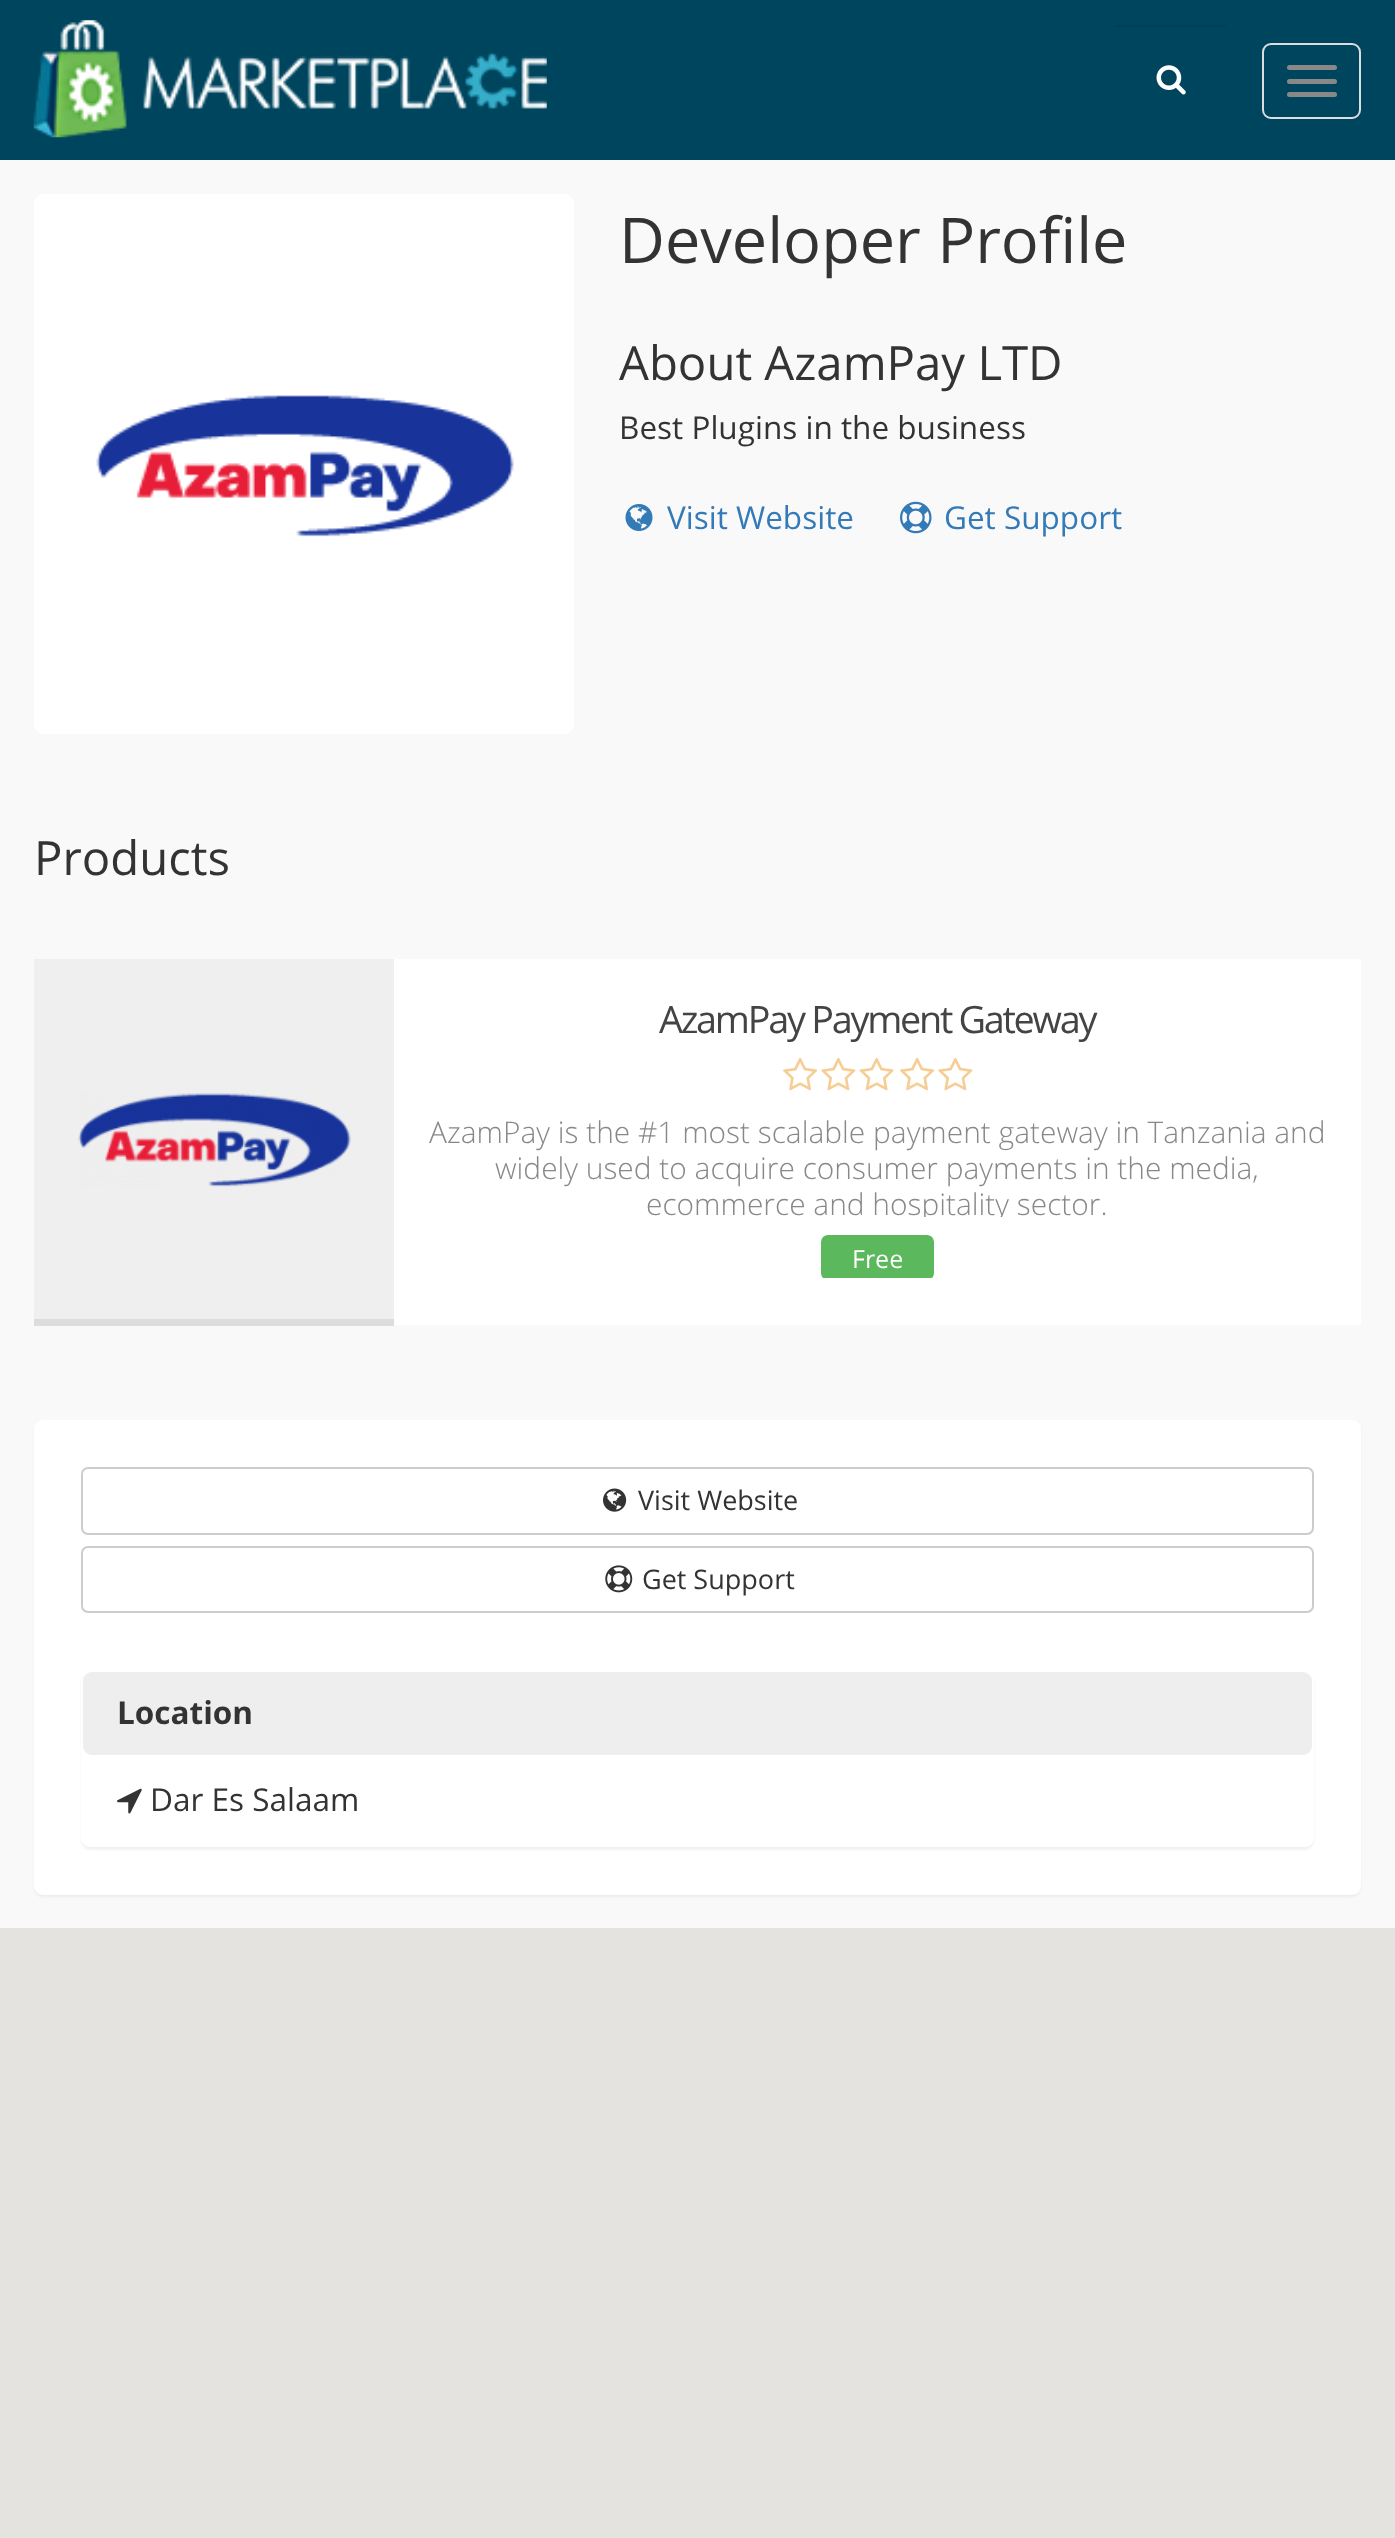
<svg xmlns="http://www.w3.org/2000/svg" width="1395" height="2538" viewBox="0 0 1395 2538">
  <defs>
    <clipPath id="clip1"><path d="M416 1235h923v43H416z"/></clipPath>
    <clipPath id="clip2"><path d="M416 1116h923v101H416z"/></clipPath>
  </defs>
  <rect width="100%" height="100%" fill="#f9f9f9"/>
  <path d="M0 0h1395v160H0z" fill="#00455e"/>
  <image x="33" y="20" width="514" height="118" href="img/1.png"/>
  <rect x="1263" y="44" width="97" height="74" rx="8" fill="none" stroke="#ddd" stroke-width="2"/>
  <rect x="1287" y="65" width="50" height="5" rx="2.5" fill="#888"/>
  <rect x="1287" y="79" width="50" height="5" rx="2.5" fill="#888"/>
  <rect x="1287" y="92" width="50" height="5" rx="2.5" fill="#888"/>
  <path d="M1114 25h112v2H1114z" fill="#004057"/>
  <image x="1156" y="65" width="30" height="30" href="img/2.png"/>
  <rect x="34" y="194" width="540" height="540" rx="9" fill="#fff"/>
  <image x="96" y="395" width="418" height="142" href="img/3.png"/>
  <image x="625" y="504" width="28" height="27" href="img/4.png"/>
  <image x="900" y="501" width="32" height="33" href="img/5.png"/>
  <path d="M394 959h967v366H394z" fill="#fff"/>
  <path d="M34 959h360v360H34z" fill="#efefef"/>
  <path d="M34 1319h360v7H34z" fill="#ddd"/>
  <image x="78" y="1093" width="273" height="94" href="img/6.png"/>
  <image x="783" y="1057" width="35" height="34" href="img/7.png"/>
  <image x="821" y="1057" width="35" height="34" href="img/8.png"/>
  <image x="859" y="1057" width="35" height="34" href="img/9.png"/>
  <image x="900" y="1057" width="35" height="34" href="img/7.png"/>
  <image x="938" y="1057" width="35" height="34" href="img/8.png"/>
  <g clip-path="url(#clip1)">
    <rect x="821" y="1235" width="113" height="45" rx="7" fill="#5cb85c"/>
  </g>
  <rect x="34" y="1422" width="1327" height="475" rx="9" fill="#0000000d" filter="blur(1px)"/>
  <rect x="34" y="1420" width="1327" height="475" rx="9" fill="#fff"/>
  <rect x="82" y="1468" width="1231" height="66" rx="6" fill="none" stroke="#ccc" stroke-width="2"/>
  <image x="603" y="1488" width="24" height="24" href="img/10.png"/>
  <rect x="82" y="1547" width="1231" height="65" rx="6" fill="none" stroke="#ccc" stroke-width="2"/>
  <image x="605" y="1565" width="28" height="28" href="img/11.png"/>
  <rect x="81" y="1672" width="1233" height="178" rx="9" fill="#0000000d" filter="blur(1px)"/>
  <rect x="81" y="1670" width="1233" height="177" rx="9" fill="#fff"/>
  <rect x="83" y="1672" width="1229" height="83" rx="9" fill="#eee"/>
  <image x="117" y="1788" width="25" height="26" href="img/12.png"/>
  <path d="M0 1928h1395v610H0z" fill="#e5e3df"/>
  <text x="619" y="263" font-family="Open Sans" font-size="63" fill="#333">Developer Profile</text>
  <text x="619" y="380" font-family="Open Sans" font-size="47.25" fill="#333">About AzamPay LTD</text>
  <text x="619" y="439" font-family="Open Sans" font-size="31.5" fill="#333">Best Plugins in the business</text>
  <g font-family="Open Sans" font-size="31.5" fill="#337ab7">
    <text x="667" y="529">Visit Website</text>
    <text x="944" y="529">Get Support</text>
  </g>
  <text x="34" y="875" font-family="Open Sans" font-size="47.25" fill="#333">Products</text>
  <text x="659" y="1033" font-family="Open Sans" font-size="37.75" letter-spacing="-2.25" fill="#444">AzamPay Payment Gateway</text>
  <g font-family="Open Sans" font-size="29.9" font-weight="300" fill="#888">
    <text x="429" y="1143">AzamPay is the #1 most scalable payment gateway in Tanzania and</text>
    <text x="495" y="1179">widely used to acquire consumer payments in the media,</text>
  </g>
  <g clip-path="url(#clip2)">
    <text x="646" y="1215" font-family="Open Sans" font-size="29.9" font-weight="300" fill="#888">ecommerce and hospitality sector.</text>
  </g>
  <text x="852" y="1268" font-family="Open Sans" font-size="25" fill="#fff">Free</text>
  <g font-family="Open Sans" font-size="27" fill="#333">
    <text x="638" y="1510">Visit Website</text>
    <text x="642" y="1589">Get Support</text>
  </g>
  <text x="117" y="1724" font-family="Open Sans" font-size="31.5" font-weight="bold" fill="#333">Location</text>
  <text x="150" y="1811" font-family="Open Sans" font-size="31.5" fill="#333">Dar Es Salaam</text>
</svg>
